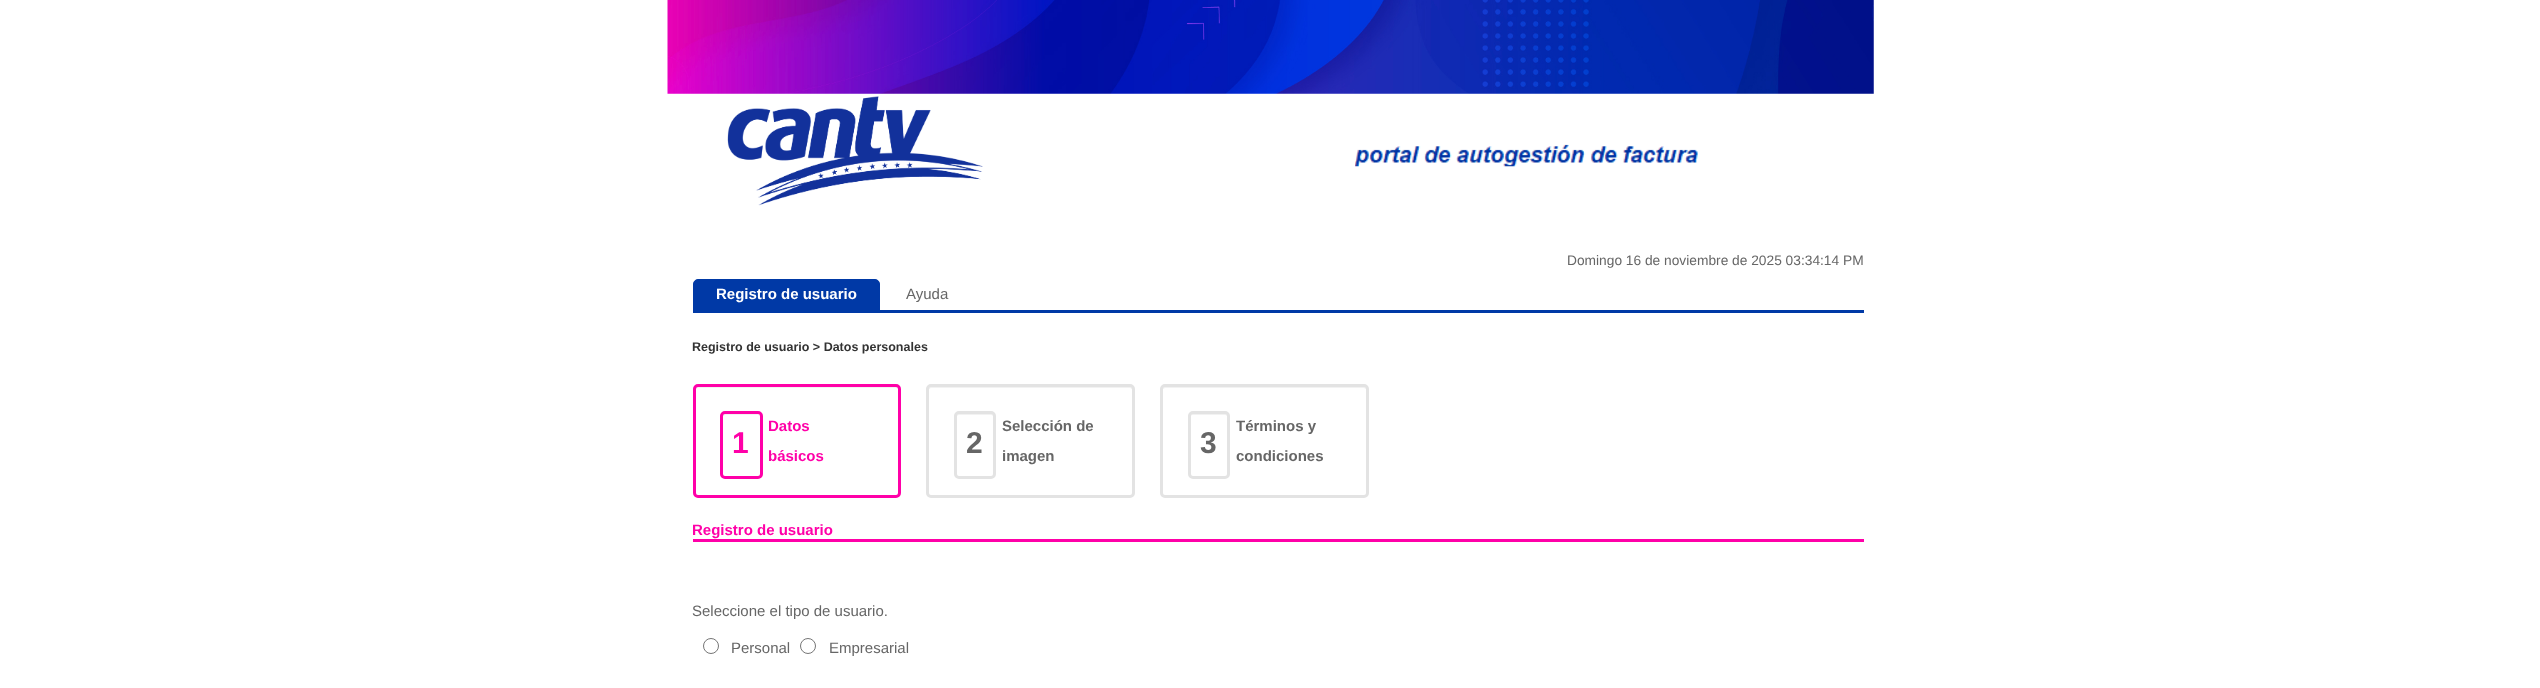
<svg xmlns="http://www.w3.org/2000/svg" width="2540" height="688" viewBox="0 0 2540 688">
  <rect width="100%" height="100%" fill="#fff"/>
  <image x="667" y="0" width="1207" height="94" href="img/1.png"/>
  <image x="727" y="96" width="256" height="110" href="img/2.png"/>
  <image x="1355" y="144" width="343" height="23" href="img/3.png"/>
  <path d="M693 310h1171v3H693z" fill="#0039a6"/>
  <path d="M698 279.5H875C877.5 279.5 879.5 281.5 879.5 284V310.5H693.5V284C693.5 281.5 695.5 279.5 698 279.5Z" fill="#0039a6" stroke="#0039a6"/>
  <path d="M698 388H896C898 388 899 389 899 390V388C899 387 898 386 896 386H698C696 386 695 387 695 388V390C695 389 696 388 698 388Z" fill="#f2f2f2"/>
  <rect x="694.5" y="385.5" width="205" height="111" rx="3.5" fill="none" stroke="#ff00a8" stroke-width="3"/>
  <path d="M725 415H758C759 415 760 416 760 418V416.5C760 415 759 414 757.5 414H725.5C724.5 414 723.5 414.5 723 416Z" fill="#f2f2f2"/>
  <rect x="721.5" y="412.5" width="40" height="65" rx="3.5" fill="none" stroke="#ff00a8" stroke-width="3"/>
  <path d="M931 388H1130C1131 388 1132 389 1132 390V495C1133 494 1133 493 1133 492V388C1133 387 1132 386 1130 386H932C930 386 929 387 929 388V390C929 389 930 388 931 388Z" fill="#f2f2f2"/>
  <rect x="927.5" y="385.5" width="206" height="111" rx="3.5" fill="none" stroke="#e3e3e3" stroke-width="3"/>
  <path d="M959 415H991C993 415 994 416 994 418C994 412.5 991 414 986 414H964C959 414 956 412.5 956 418C956 416 957 415 959 415Z" fill="#f2f2f2"/>
  <rect x="955.5" y="412.5" width="39" height="65" rx="3.5" fill="none" stroke="#e3e3e3" stroke-width="3"/>
  <path d="M1165 388H1364L1366 389V390C1366 388 1366 386 1364 386H1166C1164 386 1163 387 1163 389Z" fill="#f2f2f2"/>
  <rect x="1161.5" y="385.5" width="206" height="111" rx="3.5" fill="none" stroke="#e3e3e3" stroke-width="3"/>
  <path d="M1192 415H1225C1226 415 1228 416 1228 418C1228 412.5 1225 414 1220 414H1198C1193 414 1190 412.5 1190 418C1190 416 1191 415 1192 415Z" fill="#f2f2f2"/>
  <rect x="1189.5" y="412.5" width="39" height="65" rx="3.5" fill="none" stroke="#e3e3e3" stroke-width="3"/>
  <path d="M693 539h1171v3H693z" fill="#ff00a8"/>
  <circle cx="711" cy="646" r="7.5" fill="none" stroke="#767676"/>
  <circle cx="808" cy="646" r="7.5" fill="none" stroke="#767676"/>
  <text x="1567" y="265" font-family="Liberation Sans" font-size="13.75" fill="#666">Domingo 16 de noviembre de 2025 03:34:14 PM</text>
  <text x="716" y="299" font-family="Liberation Sans" font-size="15" font-weight="bold" fill="#fff">Registro de usuario</text>
  <text x="906" y="299" font-family="Liberation Sans" font-size="15" fill="#666">Ayuda</text>
  <text x="692" y="351" font-family="Liberation Sans" font-size="12.5" font-weight="bold" fill="#333">Registro de usuario &gt; Datos personales</text>
  <text x="768" y="431" font-family="Liberation Sans" font-size="15" font-weight="bold" fill="#ff00a8">Datos</text>
  <text x="732" y="453" font-family="Liberation Sans" font-size="30" font-weight="bold" fill="#ff00a8">1</text>
  <text x="768" y="461" font-family="Liberation Sans" font-size="15" font-weight="bold" fill="#ff00a8">básicos</text>
  <text x="1002" y="431" font-family="Liberation Sans" font-size="15" font-weight="bold" fill="#666">Selección de</text>
  <text x="966" y="453" font-family="Liberation Sans" font-size="30" font-weight="bold" fill="#666">2</text>
  <g font-family="Liberation Sans" font-size="15" font-weight="bold" fill="#666">
    <text x="1002" y="461">imagen</text>
    <text x="1236" y="431">Términos y</text>
  </g>
  <text x="1200" y="453" font-family="Liberation Sans" font-size="30" font-weight="bold" fill="#666">3</text>
  <text x="1236" y="461" font-family="Liberation Sans" font-size="15" font-weight="bold" fill="#666">condiciones</text>
  <text x="692" y="535" font-family="Liberation Sans" font-size="15" font-weight="bold" fill="#ff00a8">Registro de usuario</text>
  <g font-family="Liberation Sans" font-size="15" fill="#666">
    <text x="692" y="616">Seleccione el tipo de usuario.</text>
    <text x="731" y="653">Personal</text>
    <text x="829" y="653">Empresarial</text>
  </g>
</svg>
